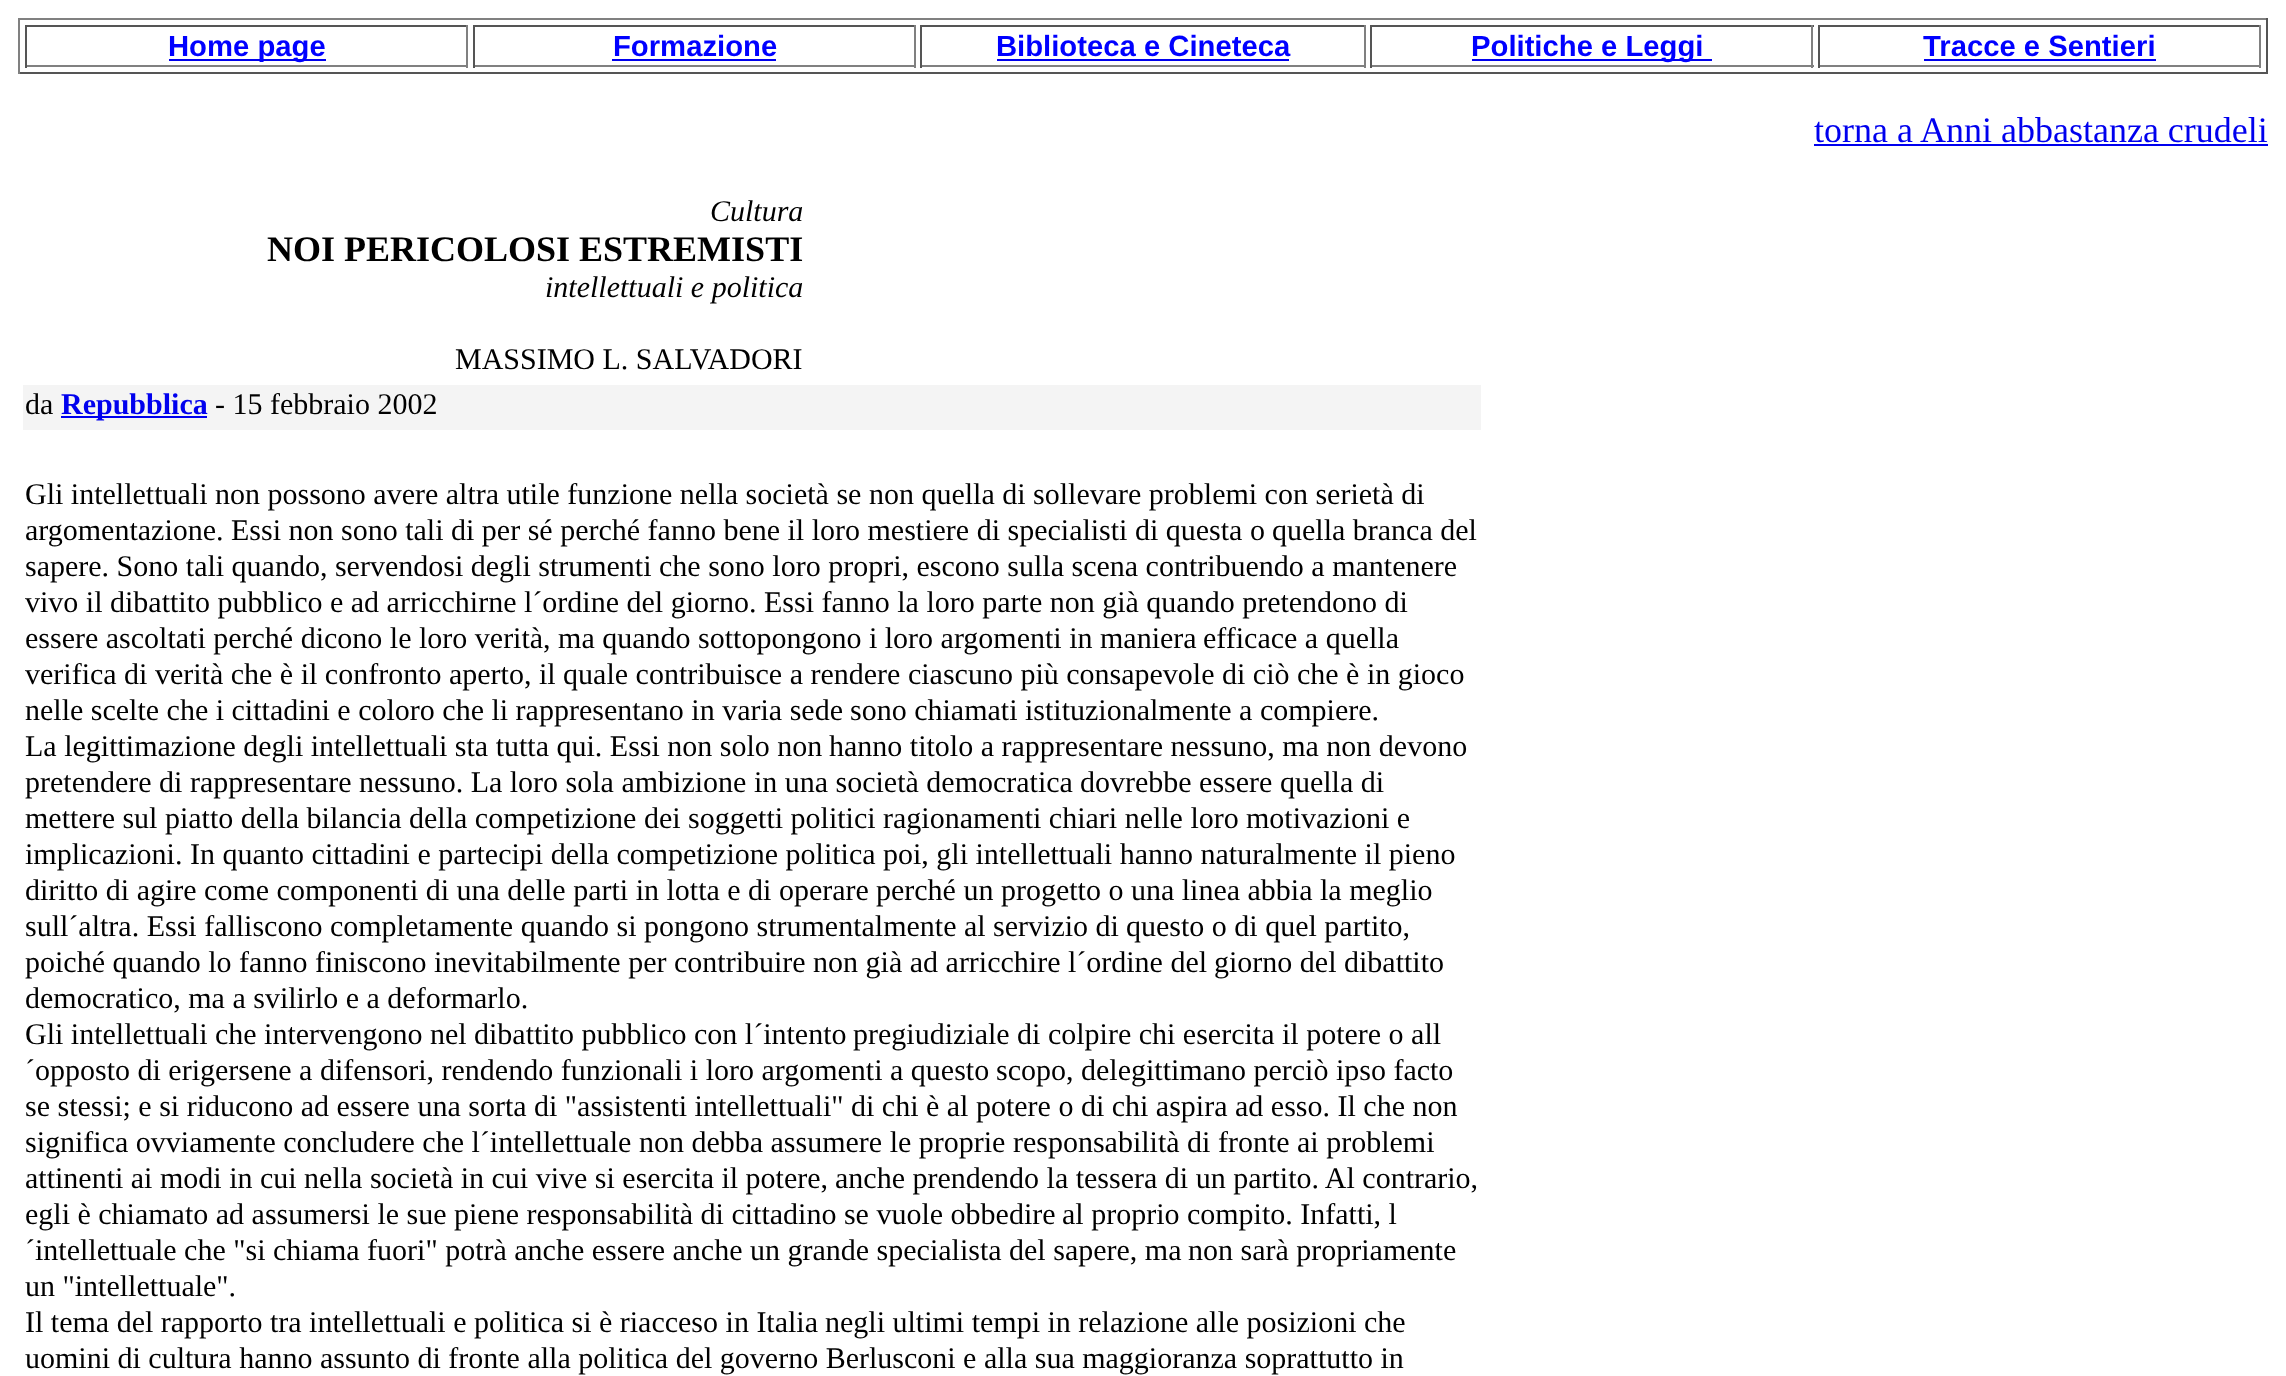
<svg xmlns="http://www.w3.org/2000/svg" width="2286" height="1376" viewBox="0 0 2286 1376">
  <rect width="100%" height="100%" fill="#fff"/>
  <path d="M18 18h2250v2H18z" fill="#808080"/>
  <path d="M2266 18h2v56H2266z" fill="#555"/>
  <path d="M18 72h2250v2H18z" fill="#555"/>
  <path d="M18 18h2v56H18z" fill="#808080"/>
  <path d="M25 25h443v2H25z" fill="#555"/>
  <path d="M466 25h2v43H466z" fill="#808080"/>
  <path d="M25 65h443v2H25z" fill="#808080"/>
  <path d="M25 25h2v43H25z" fill="#555"/>
  <path d="M169 59h157v2H169z" fill="#00e"/>
  <path d="M473 25h443v2H473z" fill="#555"/>
  <path d="M914 25h2v43H914z" fill="#808080"/>
  <path d="M473 65h443v2H473z" fill="#808080"/>
  <path d="M473 25h2v43H473z" fill="#555"/>
  <path d="M612 59h164v2H612z" fill="#00e"/>
  <path d="M920 25h446v2H920z" fill="#555"/>
  <path d="M1364 25h2v43H1364z" fill="#808080"/>
  <path d="M920 65h446v2H920z" fill="#808080"/>
  <path d="M920 25h2v43H920z" fill="#555"/>
  <path d="M997 59h292v2H997z" fill="#00e"/>
  <path d="M1370 25h444v2H1370z" fill="#555"/>
  <path d="M1811 25h2v43H1811z" fill="#808080"/>
  <path d="M1370 65h444v2H1370z" fill="#808080"/>
  <path d="M1370 25h2v43H1370z" fill="#555"/>
  <path d="M1472 59h240v2H1472z" fill="#00e"/>
  <path d="M1818 25h443v2H1818z" fill="#555"/>
  <path d="M2259 25h2v43H2259z" fill="#808080"/>
  <path d="M1818 65h443v2H1818z" fill="#808080"/>
  <path d="M1818 25h2v43H1818z" fill="#555"/>
  <path d="M1924 59h232v2H1924z" fill="#00e"/>
  <path d="M1814 144h454v2H1814z" fill="#00e"/>
  <path d="M23 385h1458v45H23z" fill="#f4f4f4"/>
  <path d="M61 416h146v2H61z" fill="#00e"/>
  <g font-family="Liberation Sans" font-size="29.25" font-weight="bold" fill="#00f">
    <text x="168" y="56">Home page</text>
    <text x="613" y="56">Formazione</text>
    <text x="996" y="56">Biblioteca e Cineteca</text>
    <text x="1471" y="56">Politiche e Leggi</text>
    <text x="1923" y="56">Tracce e Sentieri</text>
  </g>
  <text x="1814" y="142" font-family="Liberation Serif" font-size="36" fill="#00e">torna a Anni abbastanza crudeli</text>
  <text x="710" y="221" font-family="Liberation Serif" font-size="30" font-style="italic" fill="#000">Cultura</text>
  <text x="267" y="261" font-family="Liberation Serif" font-size="36" font-weight="bold" fill="#000">NOI PERICOLOSI ESTREMISTI</text>
  <text x="545" y="297" font-family="Liberation Serif" font-size="30" font-style="italic" fill="#000">intellettuali e politica</text>
  <g font-family="Liberation Serif" font-size="30" fill="#000">
    <text x="455" y="369">MASSIMO L. SALVADORI</text>
    <text x="25" y="414">da</text>
  </g>
  <text x="61" y="414" font-family="Liberation Serif" font-size="30" font-weight="bold" fill="#00e">Repubblica</text>
  <g font-family="Liberation Serif" font-size="30" fill="#000">
    <text x="215" y="414">- 15 febbraio 2002</text>
    <text x="25" y="504">Gli intellettuali non possono avere altra utile funzione nella società se non quella di sollevare problemi con serietà di</text>
    <text x="25" y="540">argomentazione. Essi non sono tali di per sé perché fanno bene il loro mestiere di specialisti di questa o</text>
    <text x="1272" y="540">quella branca del</text>
    <text x="25" y="576">sapere. Sono tali quando, servendosi degli strumenti che sono loro propri, escono sulla scena contribuendo a mantenere</text>
    <text x="25" y="612">vivo il dibattito pubblico e ad arricchirne l´ordine del giorno. Essi fanno la loro parte non già quando pretendono di</text>
    <text x="25" y="648">essere ascoltati perché dicono le loro verità, ma quando sottopongono i loro argomenti in maniera</text>
    <text x="1203" y="648">efficace a quella</text>
    <text x="25" y="684">verifica di verità che è il confronto aperto, il quale contribuisce a rendere ciascuno più consapevole di ciò che è in gioco</text>
    <text x="25" y="720">nelle scelte che i cittadini e coloro che li rappresentano in varia sede</text>
    <text x="850" y="720">sono chiamati istituzionalmente a compiere.</text>
    <text x="25" y="756">La legittimazione degli intellettuali sta tutta qui. Essi non solo non</text>
    <text x="829" y="756">hanno titolo a rappresentare nessuno, ma non devono</text>
    <text x="25" y="792">pretendere di rappresentare nessuno. La loro sola ambizione in una società democratica</text>
    <text x="1080" y="792">dovrebbe essere quella di</text>
    <text x="25" y="828">mettere sul piatto della bilancia della competizione dei soggetti politici ragionamenti chiari nelle loro</text>
    <text x="1246" y="828">motivazioni e</text>
    <text x="25" y="864">implicazioni. In quanto cittadini e partecipi della competizione politica poi, gli intellettuali hanno naturalmente il pieno</text>
    <text x="25" y="900">diritto di agire come componenti di una delle parti in lotta e di operare</text>
    <text x="876" y="900">perché un progetto o una linea abbia la meglio</text>
    <text x="25" y="936">sull´altra. Essi falliscono completamente quando si pongono strumentalmente al servizio di</text>
    <text x="1126" y="936">questo o di quel partito,</text>
    <text x="25" y="972">poiché quando lo fanno finiscono inevitabilmente per contribuire non già ad arricchire l´ordine del</text>
    <text x="1214" y="972">giorno del dibattito</text>
    <text x="25" y="1008">democratico, ma a svilirlo e a deformarlo.</text>
    <text x="25" y="1044">Gli intellettuali che intervengono nel dibattito pubblico con l´intento</text>
    <text x="853" y="1044">pregiudiziale di colpire chi esercita il potere o all</text>
    <text x="25" y="1080">´opposto di erigersene a difensori, rendendo funzionali i loro argomenti a questo</text>
    <text x="996" y="1080">scopo, delegittimano perciò ipso facto</text>
    <text x="25" y="1116">se stessi; e si riducono ad essere una sorta di "assistenti intellettuali" di chi è al potere o di chi aspira ad esso. Il che non</text>
    <text x="25" y="1152">significa ovviamente concludere che l´intellettuale non debba assumere le proprie responsabilità di fronte ai problemi</text>
    <text x="25" y="1188">attinenti ai modi in cui nella società in cui vive si esercita il potere,</text>
    <text x="835" y="1188">anche prendendo la tessera di un partito. Al contrario,</text>
    <text x="25" y="1224">egli è chiamato ad assumersi le sue piene responsabilità di cittadino se vuole obbedire</text>
    <text x="1062" y="1224">al proprio compito. Infatti, l</text>
    <text x="25" y="1260">´intellettuale che "si chiama fuori" potrà anche essere anche un grande specialista del sapere, ma</text>
    <text x="1188" y="1260">non sarà propriamente</text>
    <text x="25" y="1296">un "intellettuale".</text>
    <text x="25" y="1332">Il tema del rapporto tra intellettuali e politica si è riacceso in Italia</text>
    <text x="825" y="1332">negli ultimi tempi in relazione alle posizioni che</text>
    <text x="25" y="1368">uomini di cultura hanno assunto di fronte alla politica del governo Berlusconi e alla sua maggioranza soprattutto in</text>
  </g>
</svg>
